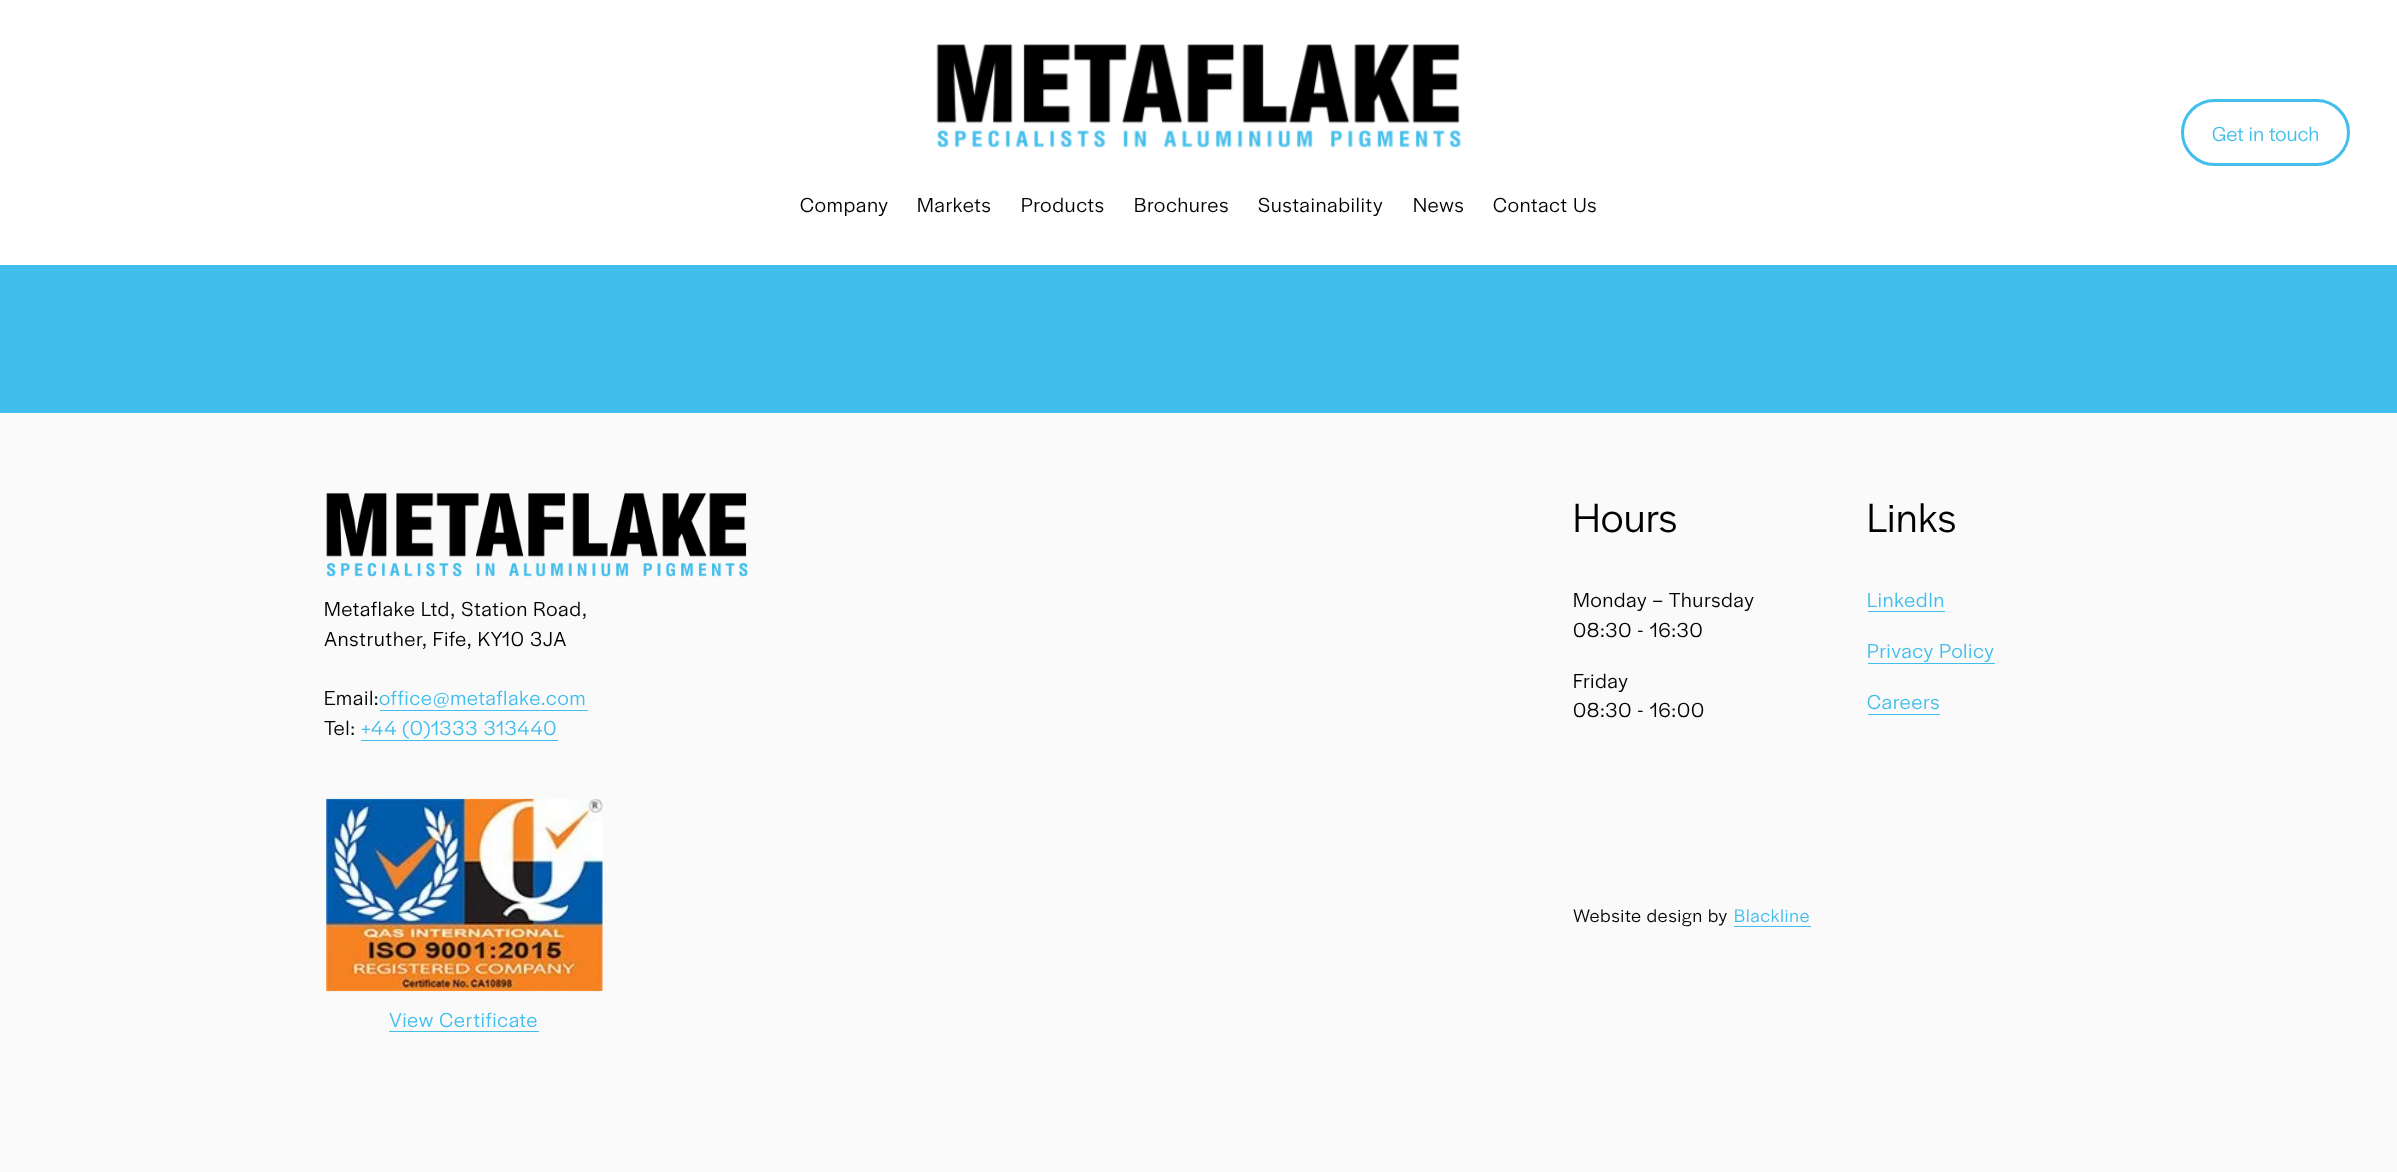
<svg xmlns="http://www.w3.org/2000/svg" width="2397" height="1172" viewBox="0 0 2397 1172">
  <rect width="100%" height="100%" fill="#fafafa"/>
  <path d="M0 0h2397v265H0z" fill="#fff"/>
  <rect x="2182.5" y="100.5" width="166" height="64" rx="32" fill="none" stroke="#42beec" stroke-width="3"/>
  <image x="936" y="44" width="526" height="104" href="img/1.png"/>
  <path d="M0 265h2397v148H0z" fill="#42beec"/>
  <image x="326" y="493" width="422" height="84" href="img/2.png"/>
  <path d="M1868 611h77v1H1868z" fill="#42beec"/>
  <path d="M1868 663h127v1H1868z" fill="#42beec"/>
  <path d="M1868 714h72v1H1868z" fill="#42beec"/>
  <path d="M380 710h208v1H380z" fill="#42beec"/>
  <path d="M361 740h197v1H361z" fill="#42beec"/>
  <image x="326" y="798" width="277" height="194" href="img/3.png"/>
  <path d="M1734 926h77v1H1734z" fill="#42beec"/>
  <path d="M389 1031h150v1H389z" fill="#42beec"/>
  <text x="2212" y="141" font-family="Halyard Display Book" font-size="21.25" letter-spacing="0.5" fill="#42beec">Get in touch</text>
  <g font-family="Halyard Display Book" font-size="21.25" letter-spacing="1.05" fill="#000">
    <text x="800" y="212">Company</text>
    <text x="917" y="212">Markets</text>
    <text x="1021" y="212">Products</text>
    <text x="1134" y="212">Brochures</text>
    <text x="1258" y="212">Sustainability</text>
    <text x="1413" y="212">News</text>
    <text x="1493" y="212">Contact Us</text>
  </g>
  <text x="1573" y="532" font-family="Halyard Display Book" font-size="42.5" letter-spacing="1" fill="#000">Hours</text>
  <g font-family="Halyard Display Book" font-size="21.25" letter-spacing="1.05" fill="#000">
    <text x="1573" y="607">Monday – Thursday</text>
    <text x="1573" y="637">08:30 - 16:30</text>
    <text x="1573" y="688">Friday</text>
    <text x="1573" y="717">08:30 - 16:00</text>
  </g>
  <text x="1867" y="532" font-family="Halyard Display Book" font-size="42.5" letter-spacing="1" fill="#000">Links</text>
  <g font-family="Halyard Display Book" font-size="21.25" letter-spacing="1.05" fill="#42beec">
    <text x="1867" y="607">LinkedIn</text>
    <text x="1867" y="658">Privacy Policy</text>
    <text x="1867" y="709">Careers</text>
  </g>
  <g font-family="Halyard Display Book" font-size="21.25" letter-spacing="1.05" fill="#000">
    <text x="324" y="616">Metaflake Ltd, Station Road,</text>
    <text x="324" y="646">Anstruther, Fife, KY10 3JA</text>
    <text x="324" y="705">Email:</text>
  </g>
  <text x="379" y="705" font-family="Halyard Display Book" font-size="21.25" letter-spacing="1.05" fill="#42beec">office@metaflake.com</text>
  <text x="324" y="735" font-family="Halyard Display Book" font-size="21.25" letter-spacing="1.05" fill="#000">Tel:</text>
  <text x="361" y="735" font-family="Halyard Display Book" font-size="21.25" letter-spacing="1.05" fill="#42beec">+44 (0)1333 313440</text>
  <text x="1573" y="922" font-family="Halyard Display Book" font-size="19" letter-spacing="1.05" fill="#000">Website design by</text>
  <text x="1734" y="922" font-family="Halyard Display Book" font-size="19" letter-spacing="1.05" fill="#42beec">Blackline</text>
  <text x="389" y="1027" font-family="Halyard Display Book" font-size="21.25" letter-spacing="1.05" fill="#42beec">View Certificate</text>
</svg>
